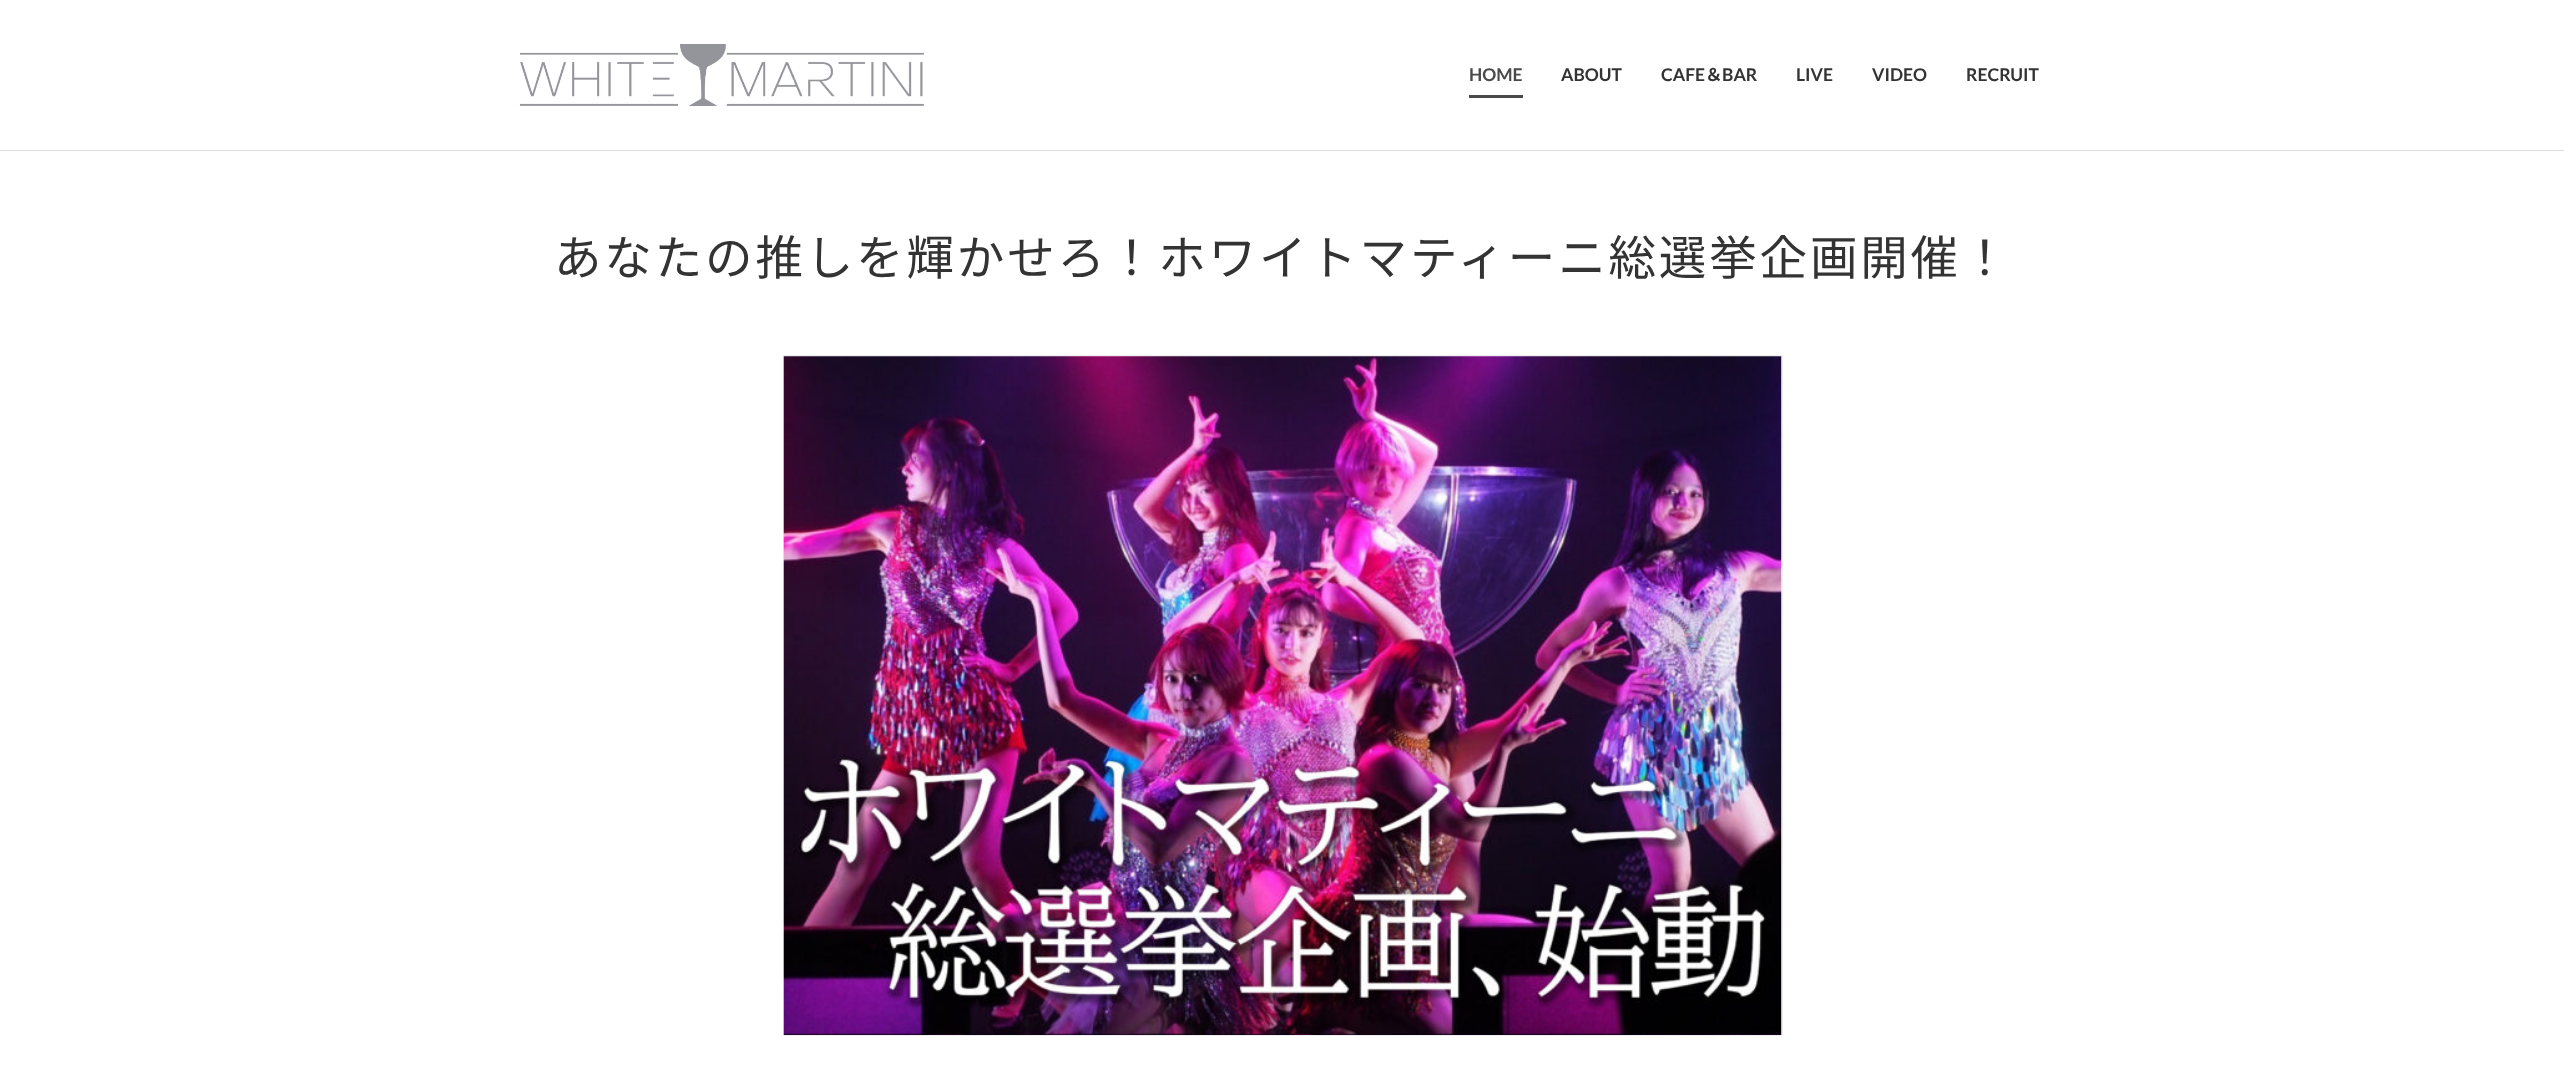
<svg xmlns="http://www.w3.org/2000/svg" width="2564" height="1069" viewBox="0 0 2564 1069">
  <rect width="100%" height="100%" fill="#fff"/>
  <path d="M0 150h2564v1H0z" fill="#ddd"/>
  <image x="520" y="44" width="404" height="62" href="img/1.png"/>
  <path d="M1469 95h54v3H1469z" fill="#494949"/>
  <path d="M783.5 355.5h999v680H783.5z" fill="none" stroke="#eee"/>
  <image x="783" y="356" width="999" height="679" href="img/2.png"/>
  <text x="1469" y="81" font-family="Lato" font-size="17.5" font-weight="bold" fill="#494949">HOME</text>
  <g font-family="Lato" font-size="17.5" font-weight="bold" fill="#333">
    <text x="1561" y="81">ABOUT</text>
    <text x="1661" y="81">CAFE</text>
  </g>
  <text x="1705" y="81" font-family="Noto Sans JP" font-size="17.5" font-weight="bold" fill="#333">＆</text>
  <g font-family="Lato" font-size="17.5" font-weight="bold" fill="#333">
    <text x="1722" y="81">BAR</text>
    <text x="1796" y="81">LIVE</text>
    <text x="1872" y="81">VIDEO</text>
    <text x="1966" y="81">RECRUIT</text>
  </g>
  <text x="554" y="275" font-family="Noto Sans JP" font-size="47.5" letter-spacing="2.85" fill="#333">あなたの推しを輝かせろ！ホワイトマティーニ総選挙企画開催！</text>
</svg>
